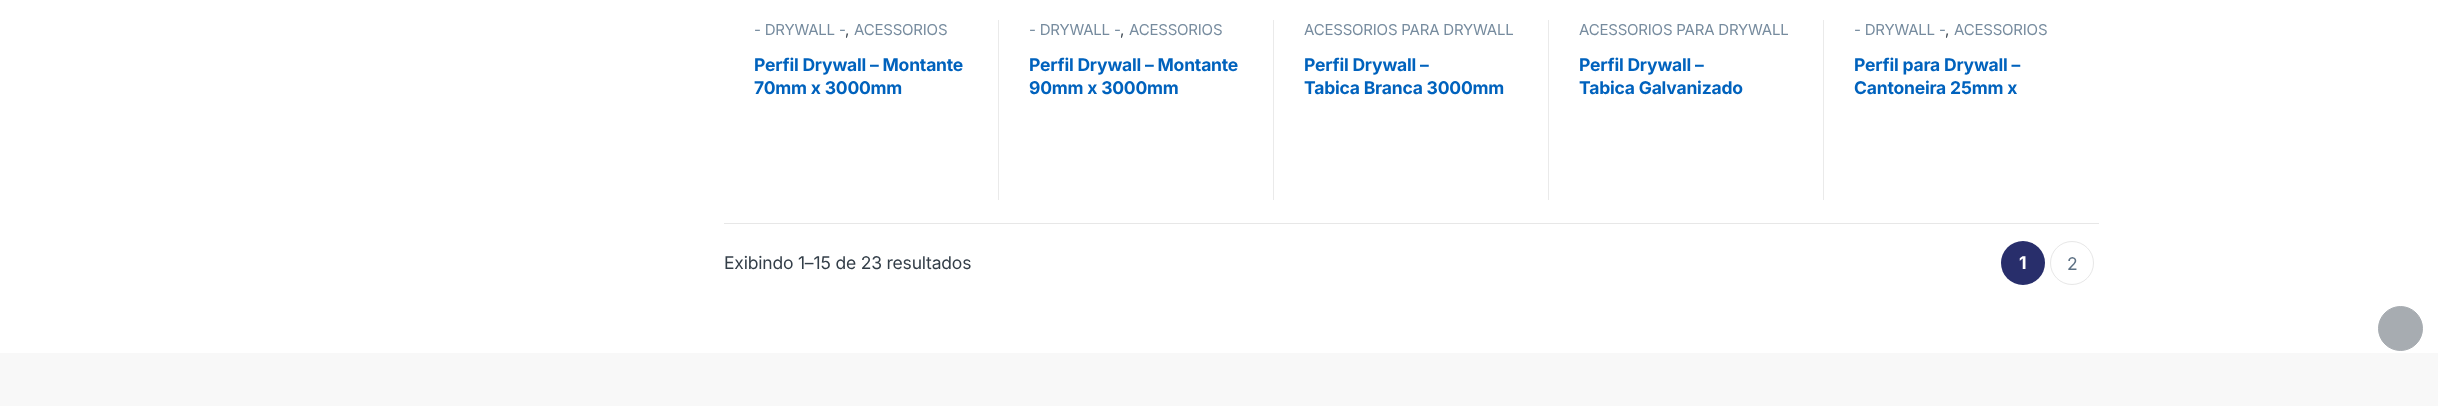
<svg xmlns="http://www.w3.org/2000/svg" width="2447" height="406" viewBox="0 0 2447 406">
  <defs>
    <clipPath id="clip1"><path d="M754 23h215v16H754z"/></clipPath>
    <clipPath id="clip2"><path d="M1029 23h215v16H1029z"/></clipPath>
    <clipPath id="clip3"><path d="M1304 23h215v16H1304z"/></clipPath>
    <clipPath id="clip4"><path d="M1579 23h215v16H1579z"/></clipPath>
    <clipPath id="clip5"><path d="M1854 23h215v16H1854z"/></clipPath>
  </defs>
  <rect width="100%" height="100%" fill="#fff"/>
  <path d="M998 20h1v180H998z" fill="#eaeaea"/>
  <path d="M1273 20h1v180H1273z" fill="#eaeaea"/>
  <path d="M1548 20h1v180H1548z" fill="#eaeaea"/>
  <path d="M1823 20h1v180H1823z" fill="#eaeaea"/>
  <path d="M724 223h1375v1H724z" fill="#e7e7e7"/>
  <circle cx="2023" cy="263" r="22" fill="#282e6b"/>
  <circle cx="2072" cy="263" r="21.5" fill="none" stroke="#e7e7e7"/>
  <path d="M0 353h2438v53H0z" fill="#f8f8f8"/>
  <circle cx="2400.5" cy="328.5" r="22" fill="#a7acb1" stroke="#a7acb1"/>
  <text x="754" y="35" font-family="Inter" font-size="15" letter-spacing="-0.2" fill="#768b9e">- DRYWALL -</text>
  <g clip-path="url(#clip1)">
    <text x="854" y="35" font-family="Inter" font-size="15" letter-spacing="-0.2" fill="#768b9e">ACESSÓRIOS</text>
  </g>
  <text x="845" y="35" font-family="Inter" font-size="15" letter-spacing="-0.2" fill="#333e48">,</text>
  <g font-family="Inter" font-size="17.5" font-weight="bold" letter-spacing="-0.2" fill="#0062bd">
    <text x="754" y="71">Perfil Drywall – Montante</text>
    <text x="754" y="94">70mm x 3000mm</text>
  </g>
  <text x="1029" y="35" font-family="Inter" font-size="15" letter-spacing="-0.2" fill="#768b9e">- DRYWALL -</text>
  <g clip-path="url(#clip2)">
    <text x="1129" y="35" font-family="Inter" font-size="15" letter-spacing="-0.2" fill="#768b9e">ACESSÓRIOS</text>
  </g>
  <text x="1120" y="35" font-family="Inter" font-size="15" letter-spacing="-0.2" fill="#333e48">,</text>
  <g font-family="Inter" font-size="17.5" font-weight="bold" letter-spacing="-0.2" fill="#0062bd">
    <text x="1029" y="71">Perfil Drywall – Montante</text>
    <text x="1029" y="94">90mm x 3000mm</text>
  </g>
  <g clip-path="url(#clip3)">
    <text x="1304" y="35" font-family="Inter" font-size="15" letter-spacing="-0.2" fill="#768b9e">ACESSÓRIOS PARA DRYWALL</text>
  </g>
  <g font-family="Inter" font-size="17.5" font-weight="bold" letter-spacing="-0.2" fill="#0062bd">
    <text x="1304" y="71">Perfil Drywall –</text>
    <text x="1304" y="94">Tabica Branca 3000mm</text>
  </g>
  <g clip-path="url(#clip4)">
    <text x="1579" y="35" font-family="Inter" font-size="15" letter-spacing="-0.2" fill="#768b9e">ACESSÓRIOS PARA DRYWALL</text>
  </g>
  <g font-family="Inter" font-size="17.5" font-weight="bold" letter-spacing="-0.2" fill="#0062bd">
    <text x="1579" y="71">Perfil Drywall –</text>
    <text x="1579" y="94">Tabica Galvanizado</text>
  </g>
  <text x="1854" y="35" font-family="Inter" font-size="15" letter-spacing="-0.2" fill="#768b9e">- DRYWALL -</text>
  <g clip-path="url(#clip5)">
    <text x="1954" y="35" font-family="Inter" font-size="15" letter-spacing="-0.2" fill="#768b9e">ACESSÓRIOS</text>
  </g>
  <text x="1945" y="35" font-family="Inter" font-size="15" letter-spacing="-0.2" fill="#333e48">,</text>
  <g font-family="Inter" font-size="17.5" font-weight="bold" letter-spacing="-0.2" fill="#0062bd">
    <text x="1854" y="71">Perfil para Drywall –</text>
    <text x="1854" y="94">Cantoneira 25mm x</text>
  </g>
  <text x="724" y="269" font-family="Inter" font-size="17.5" letter-spacing="-0.2" fill="#333e48">Exibindo 1–15 de 23 resultados</text>
  <text x="2019" y="269" font-family="Inter" font-size="17.5" font-weight="bold" letter-spacing="-0.2" fill="#fff">1</text>
  <text x="2067" y="270" font-family="Inter" font-size="17.5" letter-spacing="-0.2" fill="#5d7184">2</text>
</svg>
